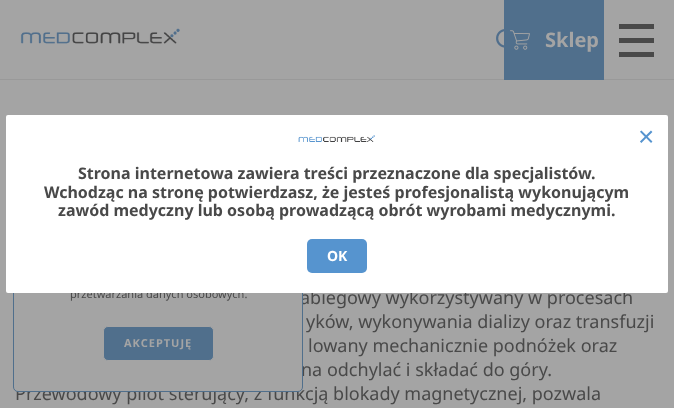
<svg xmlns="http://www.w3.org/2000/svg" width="674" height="408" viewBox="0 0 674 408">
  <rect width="100%" height="100%" fill="#a4a4a4"/>
  <path d="M0 79h674v1H0z" fill="#999"/>
  <image x="20" y="28" width="160" height="16" href="img/1.png"/>
  <image x="496" y="29" width="8" height="19" href="img/2.png"/>
  <path d="M504 0h100v80H504z" fill="#506f8c"/>
  <image x="510" y="30" width="20" height="20" href="img/3.png"/>
  <path d="M619 24h35v5H619z" fill="#494949"/>
  <path d="M619 38h35v5H619z" fill="#494949"/>
  <path d="M619 52h35v5H619z" fill="#494949"/>
  <text x="545" y="47" font-family="Noto Sans" font-size="20" font-weight="bold" fill="#a4a4a4">Sklep</text>
  <g font-family="Noto Sans" font-size="18" fill="#494949">
    <text x="300" y="304">abiegowy wykorzystywany w procesach</text>
    <text x="306" y="328">yków, wykonywania dializy oraz transfuzji</text>
    <text x="308" y="352">lowany mechanicznie podnóżek oraz</text>
    <text x="301" y="376">na odchylać i składać do góry.</text>
    <text x="15" y="400">Przewodowy pilot sterujący, z funkcją blokady magnetycznej, pozwala</text>
  </g>
  <rect x="13.5" y="121.5" width="289" height="270" rx="4.5" fill="#a4a4a4" stroke="#506f8c"/>
  <text x="70" y="298" font-family="Noto Sans" font-size="11" fill="#494949">przetwarzania danych osobowych.</text>
  <rect x="6" y="115" width="662" height="178" rx="2" fill="#fff"/>
  <text x="638" y="146" font-family="Liberation Sans" font-size="28" fill="#5694cf">×</text>
  <rect x="307" y="239" width="60" height="34" rx="5" fill="#5694cf"/>
  <text x="327" y="261" font-family="Noto Sans" font-size="14" font-weight="bold" fill="#fff">OK</text>
  <g font-family="Noto Sans" font-size="16" font-weight="bold" fill="#494949">
    <text x="58" y="216">zawód medyczny lub osobą prowadzącą obrót wyrobami medycznymi.</text>
    <text x="44" y="198">Wchodząc na stronę potwierdzasz, że jesteś profesjonalistą wykonującym</text>
    <text x="78" y="179">Strona internetowa zawiera treści przeznaczone dla specjalistów.</text>
  </g>
  <image x="298" y="135" width="77" height="7" href="img/4.png"/>
  <rect x="103.5" y="326.5" width="110" height="34" rx="4.5" fill="#506f8c" stroke="#a4a4a4"/>
  <text x="124" y="347" font-family="Noto Sans" font-size="11" font-weight="bold" letter-spacing="1" fill="#a4a4a4">AKCEPTUJĘ</text>
</svg>
